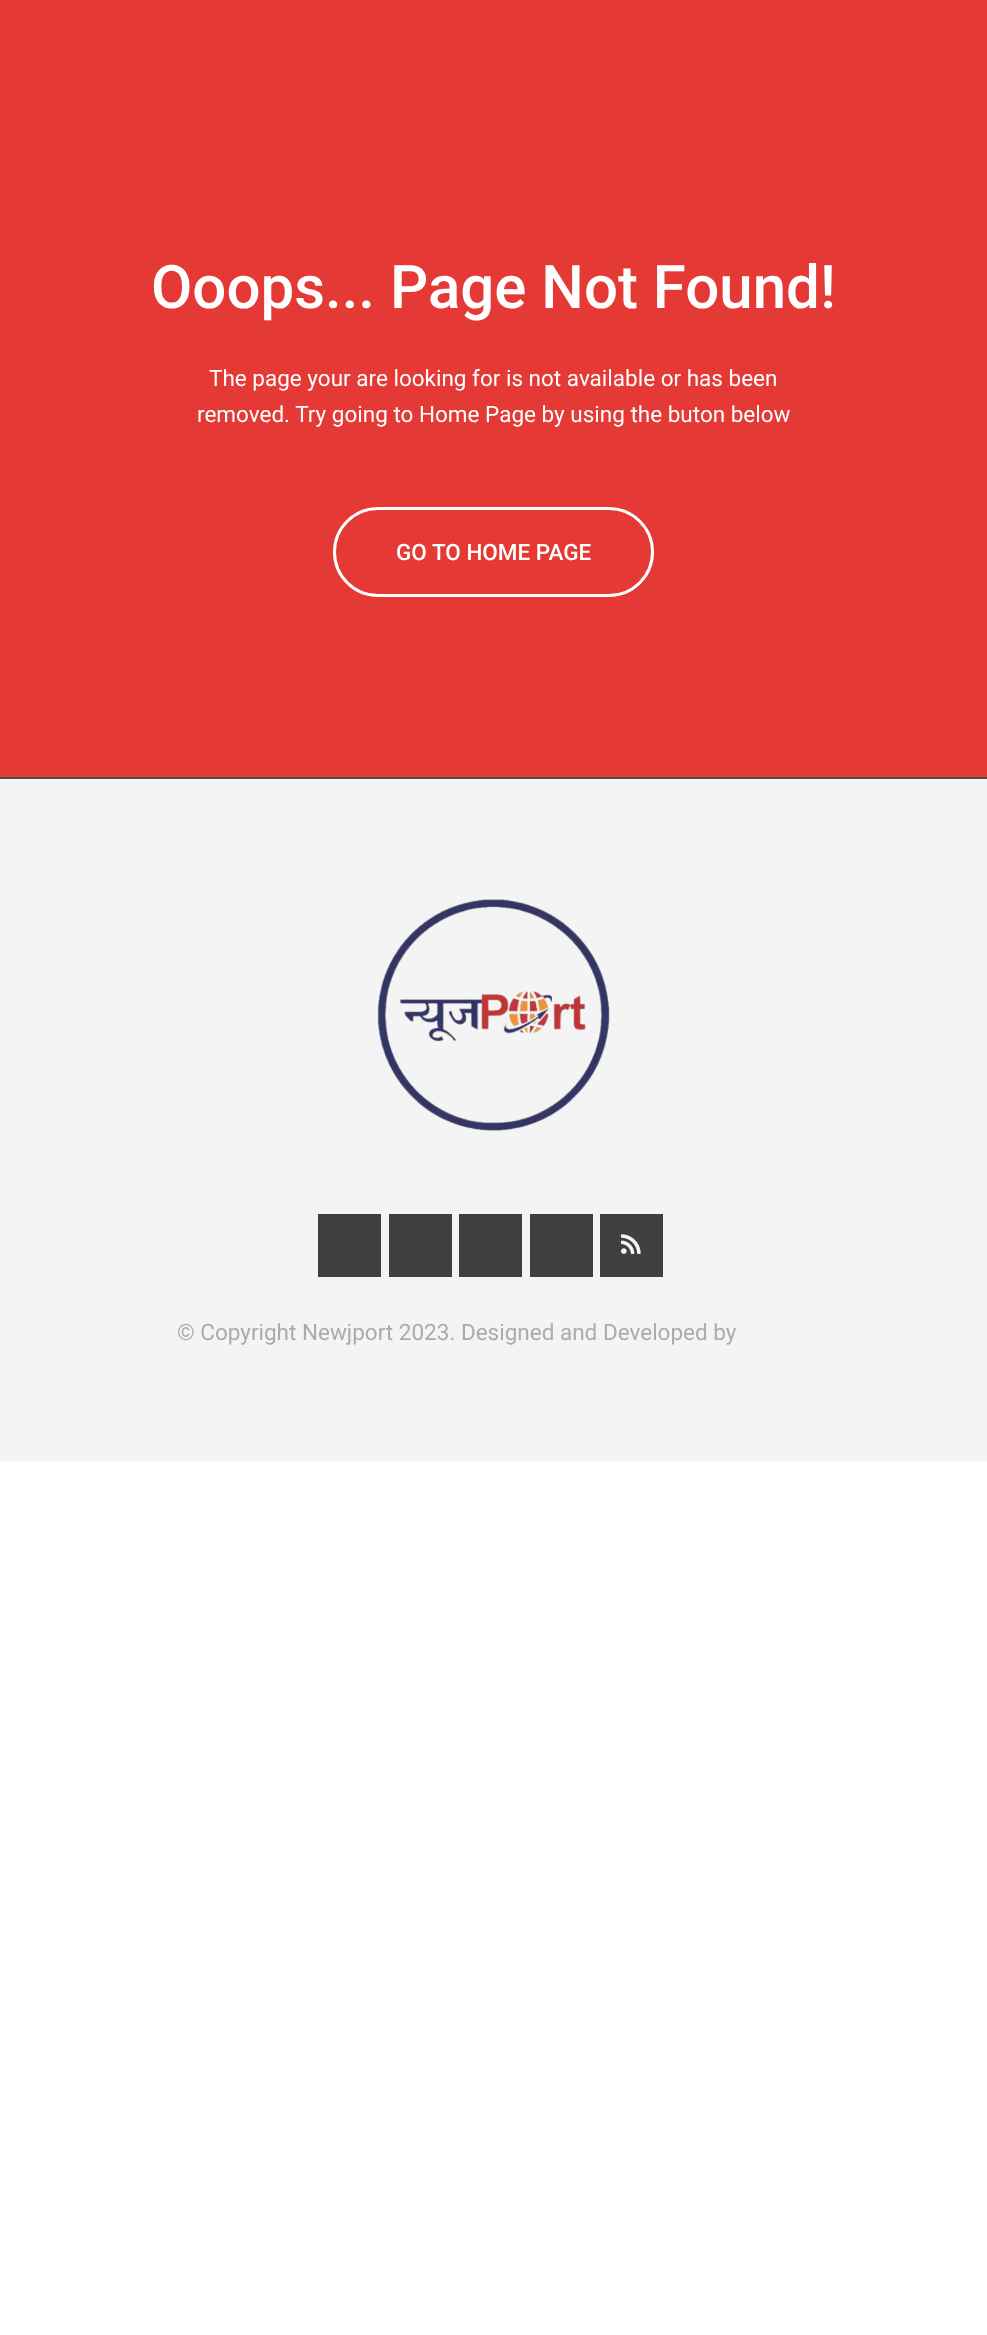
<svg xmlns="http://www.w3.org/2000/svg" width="987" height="2335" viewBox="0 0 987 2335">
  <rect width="100%" height="100%" fill="#fff"/>
  <path d="M0 0h987v777H0z" fill="#e53935"/>
  <rect x="334.5" y="508.5" width="318" height="87" rx="43.5" fill="none" stroke="#fff" stroke-width="3"/>
  <path d="M0 779h987v682H0z" fill="#f4f4f4"/>
  <path d="M0 777h987v2H0z" fill="#4d4d4d"/>
  <image x="377" y="899" width="233" height="232" href="img/1.png"/>
  <path d="M318 1214h63v63H318z" fill="#404040"/>
  <path d="M389 1214h63v63H389z" fill="#404040"/>
  <path d="M459 1214h63v63H459z" fill="#404040"/>
  <path d="M530 1214h63v63H530z" fill="#404040"/>
  <path d="M600 1214h63v63H600z" fill="#404040"/>
  <image x="621" y="1234" width="20" height="20" href="img/2.png"/>
  <text x="151" y="308" font-family="Roboto" font-size="60" font-weight="500" fill="#fff">Ooops... Page Not Found!</text>
  <g font-family="Roboto" font-size="22.5" fill="#fff">
    <text x="209" y="386">The page your are looking for is not available or has been</text>
    <text x="197" y="422">removed. Try going to Home Page by using the buton below</text>
  </g>
  <text x="396" y="560" font-family="Roboto" font-size="22.5" font-weight="500" fill="#fff">GO TO HOME PAGE</text>
  <text x="177" y="1340" font-family="Roboto" font-size="22.5" fill="#ababab">© Copyright Newjport 2023. Designed and Developed by</text>
</svg>
